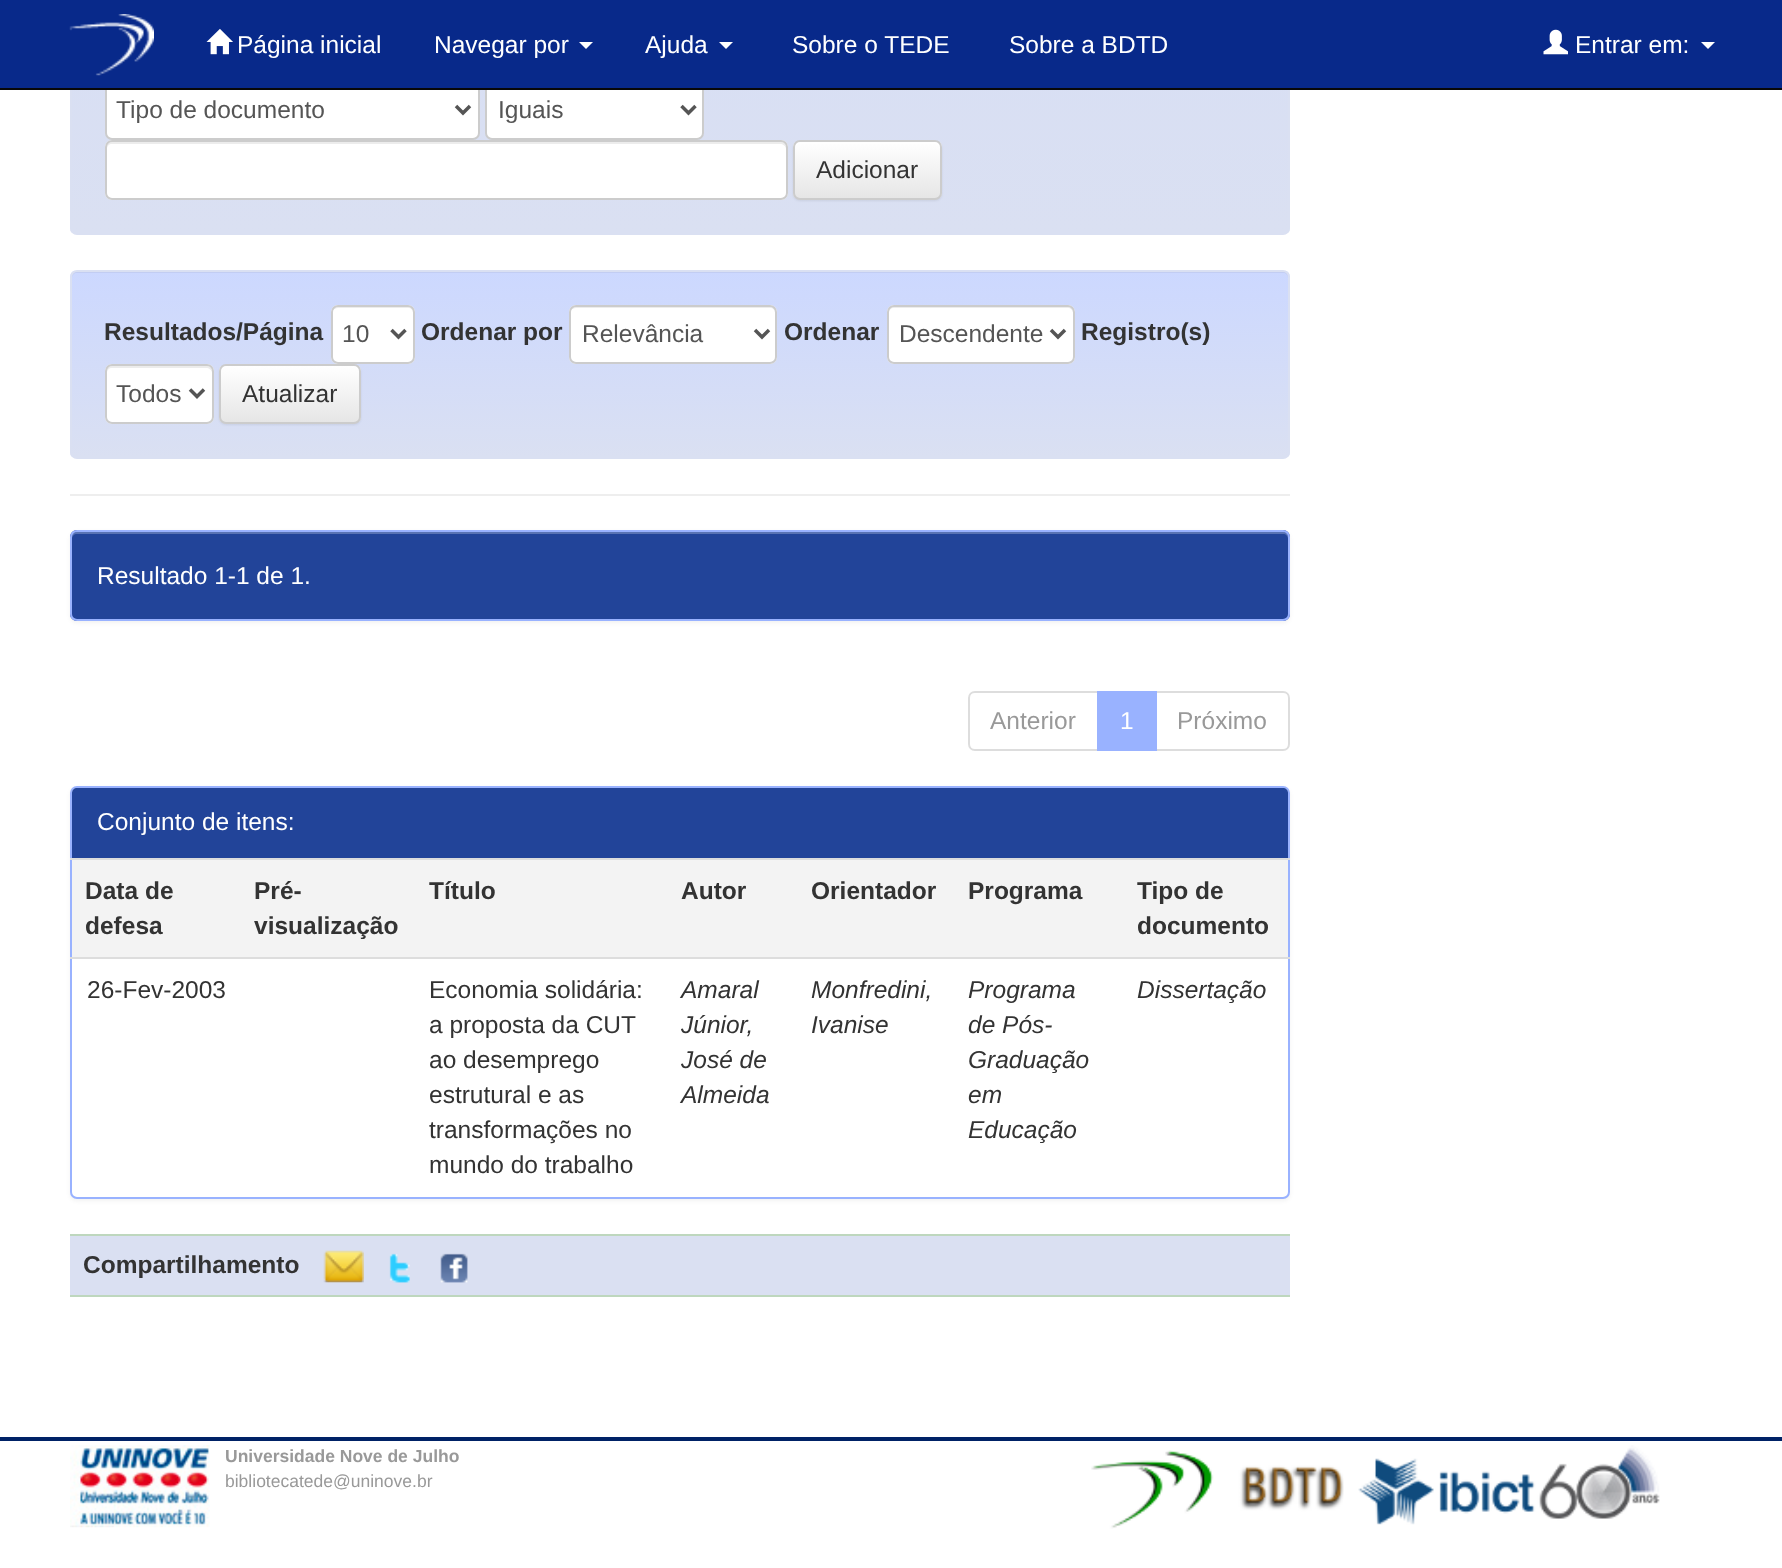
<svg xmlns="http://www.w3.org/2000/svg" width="1782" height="1568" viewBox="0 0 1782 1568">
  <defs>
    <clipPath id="clip1"><rect x="70" y="-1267" width="1220" height="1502" rx="7"/></clipPath>
    <linearGradient id="g1" gradientUnits="userSpaceOnUse" x1="680" y1="-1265" x2="680" y2="233"><stop offset="0" stop-color="#ccd8ff"/><stop offset="1" stop-color="#dae0f2"/></linearGradient>
    <clipPath id="clip2"><rect x="793" y="140" width="149" height="60" rx="7"/></clipPath>
    <linearGradient id="g2" gradientUnits="userSpaceOnUse" x1="867" y1="142" x2="867" y2="198"><stop offset="0" stop-color="#fff"/><stop offset="1" stop-color="#e6e6e6"/></linearGradient>
    <clipPath id="clip3"><rect x="70" y="270" width="1220" height="189" rx="7"/></clipPath>
    <linearGradient id="g3" gradientUnits="userSpaceOnUse" x1="680" y1="271" x2="680" y2="457"><stop offset="0" stop-color="#ccd8ff"/><stop offset="1" stop-color="#dae0f2"/></linearGradient>
    <clipPath id="clip4"><rect x="219" y="364" width="142" height="60" rx="7"/></clipPath>
    <linearGradient id="g4" gradientUnits="userSpaceOnUse" x1="290" y1="366" x2="290" y2="422"><stop offset="0" stop-color="#fff"/><stop offset="1" stop-color="#e6e6e6"/></linearGradient>
  </defs>
  <rect width="100%" height="100%" fill="#fff"/>
  <g clip-path="url(#clip1)">
    <path d="M70 90h1220v143H70z" fill="url(#g1)"/>
  </g>
  <rect x="71" y="-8" width="1218" height="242" rx="6" fill="none" stroke="#dae0f2" stroke-width="2"/>
  <rect x="106" y="82" width="373" height="57" rx="6" fill="#fff" stroke="#ccc" stroke-width="2"/>
  <rect x="486" y="82" width="217" height="57" rx="6" fill="#fff" stroke="#ccc" stroke-width="2"/>
  <path d="M0 0h1782v88H0z" fill="#08298a"/>
  <path d="M0 88h1782v2H0z" fill="#080808"/>
  <image x="69" y="14" width="85" height="62" href="img/1.png"/>
  <image x="206" y="28" width="27" height="27" href="img/2.png"/>
  <path d="M579 42H593L586 49Z" fill="#fff"/>
  <path d="M719 42H733L726 49Z" fill="#fff"/>
  <image x="1543" y="29" width="25" height="26" href="img/3.png"/>
  <path d="M1701 42H1715L1708 49Z" fill="#fff"/>
  <path d="M456 106L463 113L470 106" fill="none" stroke="#555" stroke-width="3.5"/>
  <path d="M681.5 106L688.5 113L695.5 106" fill="none" stroke="#555" stroke-width="3.5"/>
  <rect x="105" y="140" width="683" height="60" rx="7" fill="#fff"/>
  <path d="M112 144H780C783 144 786 146 786 149V147C786 144 784 142 781 142H112C109 142 107 144 107 147V149C107 146 109 144 112 144Z" fill="#ececec"/>
  <rect x="106" y="141" width="681" height="58" rx="6" fill="none" stroke="#ccc" stroke-width="2"/>
  <rect x="793" y="142" width="149" height="59" rx="7" fill="#00000012" filter="blur(1px)"/>
  <g clip-path="url(#clip2)">
    <path d="M793 142h149v56H793z" fill="url(#g2)"/>
  </g>
  <path d="M800 144H934C937 144 940 146 940 149V145C937 138 915 142 912 142H799L796 144L795 146C796 145 798 144 800 144Z" fill="#fff"/>
  <rect x="794" y="141" width="147" height="58" rx="6" fill="none" stroke="#ccc" stroke-width="2"/>
  <g clip-path="url(#clip3)">
    <path d="M70 271h1220v186H70z" fill="url(#g3)"/>
  </g>
  <path d="M77 273H1283C1286 273 1288 275 1288 278V276C1288 273 1286 271 1283 271H77C74 271 72 273 72 276V278C72 275 74 273 77 273Z" fill="#c2cdf2"/>
  <rect x="71" y="271" width="1218" height="187" rx="6" fill="none" stroke="#dae0f2" stroke-width="2"/>
  <rect x="331" y="305" width="84" height="59" rx="7" fill="#fff"/>
  <path d="M338 308H408C411 308 413 310 413 313V311C413 308 411 306 408 306H338C336 306 333 308 333 310C334 309 336 308 338 308Z" fill="#ececec"/>
  <rect x="332" y="306" width="82" height="57" rx="6" fill="none" stroke="#ccc" stroke-width="2"/>
  <path d="M391.5 330L398.5 337L405.5 330" fill="none" stroke="#555" stroke-width="3.5"/>
  <rect x="569" y="305" width="208" height="59" rx="7" fill="#fff"/>
  <path d="M576 308H770C773 308 775 310 775 313V311C775 308 773 306 770 306H576C574 306 571 308 571 310C572 309 574 308 576 308Z" fill="#ececec"/>
  <rect x="570" y="306" width="206" height="57" rx="6" fill="none" stroke="#ccc" stroke-width="2"/>
  <path d="M755 330L762 337L769 330" fill="none" stroke="#555" stroke-width="3.5"/>
  <rect x="887" y="305" width="188" height="59" rx="7" fill="#fff"/>
  <path d="M894 308H1068C1070 308 1073 310 1073 313V311C1073 308 1071 306 1068 306H894C891 306 889 308 889 311V313C889 310 891 308 894 308Z" fill="#ececec"/>
  <rect x="888" y="306" width="186" height="57" rx="6" fill="none" stroke="#ccc" stroke-width="2"/>
  <path d="M1051 330L1058 337L1065 330" fill="none" stroke="#555" stroke-width="3.5"/>
  <rect x="105" y="364" width="109" height="60" rx="7" fill="#fff"/>
  <path d="M112 368H206C209 368 212 370 212 373V371C212 368 210 366 207 366H112C109 366 107 368 107 371V373C107 370 109 368 112 368Z" fill="#ececec"/>
  <rect x="106" y="365" width="107" height="58" rx="6" fill="none" stroke="#ccc" stroke-width="2"/>
  <path d="M190 389.5L197 396.5L204 389.5" fill="none" stroke="#555" stroke-width="3.5"/>
  <rect x="219" y="366" width="142" height="59" rx="7" fill="#00000012" filter="blur(1px)"/>
  <g clip-path="url(#clip4)">
    <path d="M219 366h142v56H219z" fill="url(#g4)"/>
  </g>
  <rect x="220" y="365" width="140" height="58" rx="6" fill="none" stroke="#ccc" stroke-width="2"/>
  <path d="M70 494h1220v2H70z" fill="#eee"/>
  <rect x="70" y="532" width="1220" height="91" rx="7" fill="#0000000d" filter="blur(2px)"/>
  <rect x="70" y="530" width="1220" height="91" rx="7" fill="#249"/>
  <path d="M77 534H1283C1286 534 1288 536 1288 539V537C1288 534 1286 532 1283 532H77C74 532 72 534 72 537V539C72 536 74 534 77 534Z" fill="#5973b3"/>
  <rect x="71" y="531" width="1218" height="89" rx="6" fill="none" stroke="#99b2ff" stroke-width="2"/>
  <path d="M975 692H1098V750H975C971.5 750 969 747.5 969 744V698C969 694.5 971.5 692 975 692Z" fill="none" stroke="#ddd" stroke-width="2"/>
  <path d="M1156 692H1283C1286.5 692 1289 694.5 1289 698V744C1289 747.5 1286.5 750 1283 750H1156Z" fill="none" stroke="#ddd" stroke-width="2"/>
  <path d="M1097 691h60v60H1097z" fill="#99b2ff"/>
  <rect x="70" y="788" width="1220" height="413" rx="7" fill="#0000000d" filter="blur(2px)"/>
  <rect x="71" y="787" width="1218" height="411" rx="6" fill="#fff" stroke="#99b2ff" stroke-width="2"/>
  <path d="M77 788H1283C1286 788 1288 790 1288 793V858H72V793C72 790 74 788 77 788Z" fill="#249"/>
  <path d="M72 860h1216v97H72z" fill="#f3f3f3"/>
  <path d="M70 858h1220v2H70z" fill="#ddd"/>
  <path d="M70 957h1220v2H70z" fill="#ddd"/>
  <path d="M70 1234h1220v2H70z" fill="#bed7be"/>
  <path d="M70 1295h1220v2H70z" fill="#bed7be"/>
  <path d="M70 1236h1220v59H70z" fill="#dae0f2"/>
  <image x="323" y="1250" width="41" height="33" href="img/4.png"/>
  <image x="389" y="1253" width="21" height="30" href="img/5.png"/>
  <image x="440" y="1253" width="28" height="30" href="img/6.png"/>
  <path d="M0 1437h1782v4H0z" fill="#026"/>
  <image x="70" y="1445" width="140" height="83" href="img/7.png"/>
  <image x="1091" y="1450" width="253" height="79" href="img/8.png"/>
  <image x="1358" y="1445" width="302" height="80" href="img/9.png"/>
  <g font-family="Liberation Sans" font-size="24.5" fill="#fff">
    <text x="237" y="53">Página inicial</text>
    <text x="434" y="53">Navegar por</text>
    <text x="645" y="53">Ajuda</text>
    <text x="792" y="53">Sobre o TEDE</text>
    <text x="1009" y="53">Sobre a BDTD</text>
    <text x="1575" y="53">Entrar em:</text>
  </g>
  <g font-family="Liberation Sans" font-size="24.5" fill="#555">
    <text x="116" y="118">Tipo de documento</text>
    <text x="498" y="118">Iguais</text>
  </g>
  <text x="816" y="178" font-family="Liberation Sans" font-size="24.5" fill="#333">Adicionar</text>
  <text x="104" y="340" font-family="Liberation Sans" font-size="24.5" font-weight="bold" fill="#333">Resultados/Página</text>
  <text x="342" y="342" font-family="Liberation Sans" font-size="24.5" fill="#555">10</text>
  <text x="421" y="340" font-family="Liberation Sans" font-size="24.5" font-weight="bold" fill="#333">Ordenar por</text>
  <text x="582" y="342" font-family="Liberation Sans" font-size="24.5" fill="#555">Relevância</text>
  <text x="784" y="340" font-family="Liberation Sans" font-size="24.5" font-weight="bold" fill="#333">Ordenar</text>
  <text x="899" y="342" font-family="Liberation Sans" font-size="24.5" fill="#555">Descendente</text>
  <text x="1081" y="340" font-family="Liberation Sans" font-size="24.5" font-weight="bold" fill="#333">Registro(s)</text>
  <text x="116" y="402" font-family="Liberation Sans" font-size="24.5" fill="#555">Todos</text>
  <text x="242" y="402" font-family="Liberation Sans" font-size="24.5" fill="#333">Atualizar</text>
  <text x="97" y="584" font-family="Liberation Sans" font-size="24.5" fill="#fff">Resultado 1-1 de 1.</text>
  <text x="990" y="729" font-family="Liberation Sans" font-size="24.5" fill="#999">Anterior</text>
  <text x="1120" y="729" font-family="Liberation Sans" font-size="24.5" fill="#fff">1</text>
  <text x="1177" y="729" font-family="Liberation Sans" font-size="24.5" fill="#999">Próximo</text>
  <text x="97" y="830" font-family="Liberation Sans" font-size="24.5" fill="#fff">Conjunto de itens:</text>
  <g font-family="Liberation Sans" font-size="24.5" font-weight="bold" fill="#333">
    <text x="85" y="899">Data de</text>
    <text x="85" y="934">defesa</text>
    <text x="254" y="899">Pré-</text>
    <text x="254" y="934">visualização</text>
    <text x="429" y="899">Título</text>
    <text x="681" y="899">Autor</text>
    <text x="811" y="899">Orientador</text>
    <text x="968" y="899">Programa</text>
    <text x="1137" y="899">Tipo de</text>
    <text x="1137" y="934">documento</text>
  </g>
  <g font-family="Liberation Sans" font-size="24.5" fill="#333">
    <text x="87" y="998">26-Fev-2003</text>
    <text x="429" y="998">Economia solidária:</text>
    <text x="429" y="1033">a proposta da CUT</text>
    <text x="429" y="1068">ao desemprego</text>
    <text x="429" y="1103">estrutural e as</text>
    <text x="429" y="1138">transformações no</text>
    <text x="429" y="1173">mundo do trabalho</text>
  </g>
  <g font-family="Liberation Sans" font-size="24.5" font-style="italic" fill="#333">
    <text x="681" y="998">Amaral</text>
    <text x="681" y="1033">Júnior,</text>
    <text x="681" y="1068">José de</text>
    <text x="681" y="1103">Almeida</text>
    <text x="811" y="998">Monfredini,</text>
    <text x="811" y="1033">Ivanise</text>
    <text x="968" y="998">Programa</text>
    <text x="968" y="1033">de Pós-</text>
    <text x="968" y="1068">Graduação</text>
    <text x="968" y="1103">em</text>
    <text x="968" y="1138">Educação</text>
    <text x="1137" y="998">Dissertação</text>
  </g>
  <text x="83" y="1273" font-family="Liberation Sans" font-size="24.5" font-weight="bold" fill="#333">Compartilhamento</text>
  <text x="225" y="1462" font-family="Liberation Sans" font-size="17.5" font-weight="bold" fill="#999">Universidade Nove de Julho</text>
  <text x="225" y="1487" font-family="Liberation Sans" font-size="17.5" fill="#999">bibliotecatede@uninove.br</text>
</svg>
